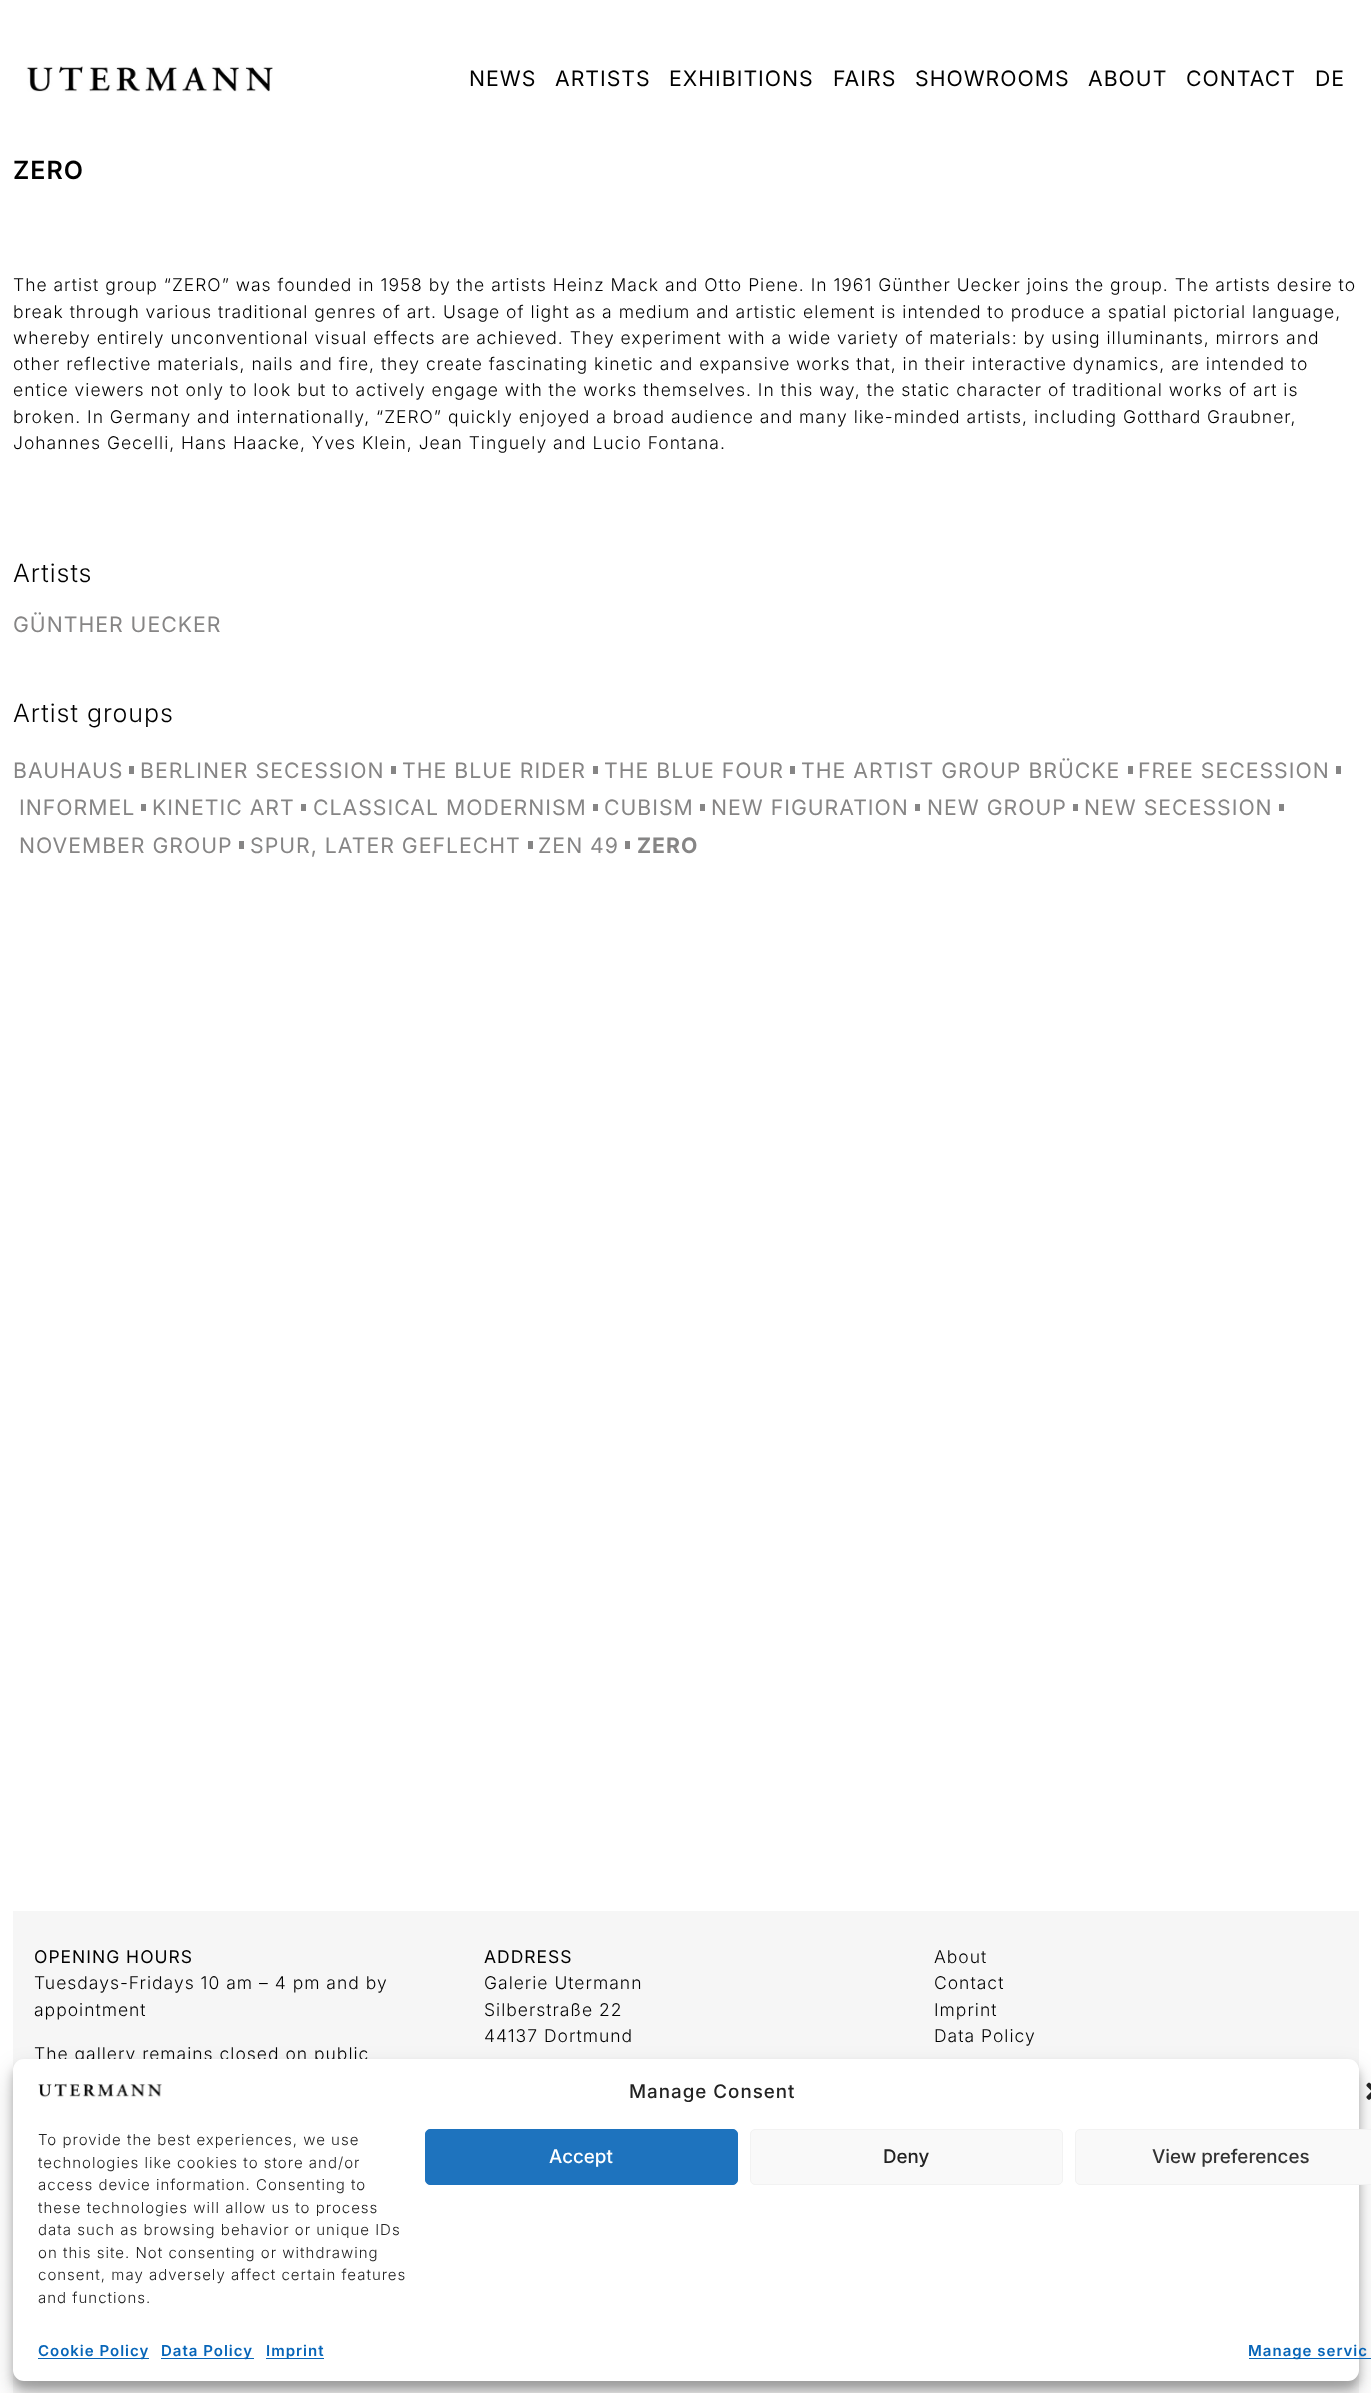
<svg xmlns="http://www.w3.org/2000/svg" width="1371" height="2393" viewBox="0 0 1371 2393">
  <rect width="100%" height="100%" fill="#fff"/>
  <image x="26" y="66" width="247" height="26" href="img/1.png"/>
  <path d="M129 766h5v8H129z" fill="#868585"/>
  <path d="M391 766h5v8H391z" fill="#868585"/>
  <path d="M593 766h5v8H593z" fill="#868585"/>
  <path d="M790 766h5v8H790z" fill="#868585"/>
  <path d="M1128 766h5v8H1128z" fill="#868585"/>
  <path d="M1336 766h5v8H1336z" fill="#868585"/>
  <path d="M141 804h5v7H141z" fill="#868585"/>
  <path d="M301 804h5v7H301z" fill="#868585"/>
  <path d="M593 804h5v7H593z" fill="#868585"/>
  <path d="M700 804h5v7H700z" fill="#868585"/>
  <path d="M915 804h5v7H915z" fill="#868585"/>
  <path d="M1073 804h5v7H1073z" fill="#868585"/>
  <path d="M1279 804h5v7H1279z" fill="#868585"/>
  <path d="M239 841h5v8H239z" fill="#868585"/>
  <path d="M528 841h5v8H528z" fill="#868585"/>
  <path d="M625 841h5v8H625z" fill="#868585"/>
  <path d="M13 1911h1346v482H13z" fill="#f6f6f6"/>
  <rect x="13" y="2066" width="1346" height="323" rx="11" fill="#0000003b" filter="blur(4px)"/>
  <rect x="13" y="2071" width="1346" height="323" rx="11" fill="#00000030" filter="blur(12.5px)"/>
  <image x="1366" y="2082" width="5" height="18" href="img/3.png"/>
  <g font-family="Inter" font-size="21.25" letter-spacing="1" fill="#000">
    <text x="469" y="86">NEWS</text>
    <text x="555" y="86">ARTISTS</text>
    <text x="669" y="86">EXHIBITIONS</text>
    <text x="833" y="86">FAIRS</text>
    <text x="915" y="86">SHOWROOMS</text>
    <text x="1088" y="86">ABOUT</text>
    <text x="1186" y="86">CONTACT</text>
    <text x="1315" y="86">DE</text>
  </g>
  <text x="13" y="179" font-family="Inter" font-size="25" font-weight="600" letter-spacing="1" fill="#000">ZERO</text>
  <g font-family="Inter" font-size="17.5" font-weight="300" letter-spacing="1" fill="#000">
    <text x="13" y="291">The artist group “ZERO” was founded in 1958 by the artists Heinz Mack and Otto Piene. In 1961 Günther Uecker joins the group. The artists desire to</text>
    <text x="13" y="318">break through various traditional genres of art. Usage of light as a medium and artistic element is intended to produce a spatial pictorial language,</text>
    <text x="13" y="344">whereby entirely unconventional visual effects are achieved. They experiment with a wide variety of materials: by using illuminants, mirrors and</text>
    <text x="13" y="370">other reflective materials, nails and fire, they create fascinating kinetic and expansive works that, in their interactive dynamics, are intended to</text>
    <text x="13" y="396">entice viewers not only to look but to actively engage with the works themselves. In this way, the static character of traditional works of art is</text>
    <text x="13" y="423">broken. In Germany and internationally, “ZERO” quickly enjoyed a broad audience and many like-minded artists, including Gotthard Graubner,</text>
    <text x="13" y="449">Johannes Gecelli, Hans Haacke, Yves Klein, Jean Tinguely and Lucio Fontana.</text>
  </g>
  <text x="13" y="582" font-family="Inter" font-size="25" font-weight="300" letter-spacing="1" fill="#000">Artists</text>
  <text x="13" y="632" font-family="Inter" font-size="21.25" letter-spacing="1" fill="#868585">GÜNTHER UECKER</text>
  <text x="13" y="722" font-family="Inter" font-size="25" font-weight="300" letter-spacing="1" fill="#000">Artist groups</text>
  <g font-family="Inter" font-size="21.25" letter-spacing="1" fill="#868585">
    <text x="13" y="778">BAUHAUS</text>
    <text x="140" y="778">BERLINER SECESSION</text>
    <text x="402" y="778">THE BLUE RIDER</text>
    <text x="604" y="778">THE BLUE FOUR</text>
    <text x="801" y="778">THE ARTIST GROUP BRÜCKE</text>
    <text x="1138" y="778">FREE SECESSION</text>
    <text x="19" y="815">INFORMEL</text>
    <text x="152" y="815">KINETIC ART</text>
    <text x="313" y="815">CLASSICAL MODERNISM</text>
    <text x="604" y="815">CUBISM</text>
    <text x="711" y="815">NEW FIGURATION</text>
    <text x="927" y="815">NEW GROUP</text>
    <text x="1084" y="815">NEW SECESSION</text>
    <text x="19" y="853">NOVEMBER GROUP</text>
    <text x="250" y="853">SPUR, LATER GEFLECHT</text>
    <text x="538" y="853">ZEN 49</text>
  </g>
  <text x="637" y="853" font-family="Inter" font-size="21.25" font-weight="bold" letter-spacing="1" fill="#868585">ZERO</text>
  <text x="34" y="1963" font-family="Inter" font-size="17.5" letter-spacing="1" fill="#000">OPENING HOURS</text>
  <g font-family="Inter" font-size="17.5" font-weight="300" letter-spacing="1" fill="#000">
    <text x="34" y="1989">Tuesdays-Fridays 10 am – 4 pm and by</text>
    <text x="34" y="2016">appointment</text>
    <text x="34" y="2060">The gallery remains closed on public</text>
  </g>
  <text x="484" y="1963" font-family="Inter" font-size="17.5" letter-spacing="1" fill="#000">ADDRESS</text>
  <g font-family="Inter" font-size="17.5" font-weight="300" letter-spacing="1" fill="#000">
    <text x="484" y="1989">Galerie Utermann</text>
    <text x="484" y="2016">Silberstraße 22</text>
    <text x="484" y="2042">44137 Dortmund</text>
    <text x="934" y="1963">About</text>
    <text x="934" y="1989">Contact</text>
    <text x="934" y="2016">Imprint</text>
    <text x="934" y="2042">Data Policy</text>
  </g>
  <rect x="13" y="2059" width="1346" height="322" rx="11" fill="#fff"/>
  <image x="38" y="2083" width="124" height="15" href="img/2.png"/>
  <text x="629" y="2098" font-family="Inter" font-size="18.75" font-weight="500" letter-spacing="1" fill="#222">Manage Consent</text>
  <g font-family="Inter" font-size="15" font-weight="300" letter-spacing="1" fill="#222">
    <text x="38" y="2145">To provide the best experiences, we use</text>
    <text x="38" y="2168">technologies like cookies to store and/or</text>
    <text x="38" y="2190">access device information. Consenting to</text>
    <text x="38" y="2213">these technologies will allow us to process</text>
    <text x="38" y="2235">data such as browsing behavior or unique IDs</text>
    <text x="38" y="2258">on this site. Not consenting or withdrawing</text>
    <text x="38" y="2280">consent, may adversely affect certain features</text>
    <text x="38" y="2303">and functions.</text>
  </g>
  <rect x="425.5" y="2129.5" width="312" height="55" rx="4.5" fill="#1e73be" stroke="#1e73be"/>
  <text x="549" y="2163" font-family="Inter" font-size="18.75" font-weight="500" fill="#fff">Accept</text>
  <rect x="750.5" y="2129.5" width="312" height="55" rx="4.5" fill="#f9f9f9" stroke="#f2f2f2"/>
  <text x="883" y="2163" font-family="Inter" font-size="18.75" font-weight="500" fill="#222">Deny</text>
  <rect x="1075.5" y="2129.5" width="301" height="55" rx="4.5" fill="#f9f9f9" stroke="#f2f2f2"/>
  <text x="1152" y="2163" font-family="Inter" font-size="18.75" font-weight="500" fill="#333">View preferences</text>
  <path d="M38 2358h111v1H38z" fill="#0765b8"/>
  <text x="38" y="2356" font-family="Inter" font-size="15" font-weight="600" letter-spacing="1" fill="#0765b8">Cookie Policy</text>
  <path d="M161 2358h93v1H161z" fill="#0765b8"/>
  <text x="161" y="2356" font-family="Inter" font-size="15" font-weight="600" letter-spacing="1" fill="#0765b8">Data Policy</text>
  <path d="M266 2358h58v1H266z" fill="#0765b8"/>
  <text x="266" y="2356" font-family="Inter" font-size="15" font-weight="600" letter-spacing="1" fill="#0765b8">Imprint</text>
  <path d="M1249 2358h122v1H1249z" fill="#0765b8"/>
  <text x="1248" y="2356" font-family="Inter" font-size="15" font-weight="600" letter-spacing="1" fill="#0765b8">Manage servic</text>
</svg>
